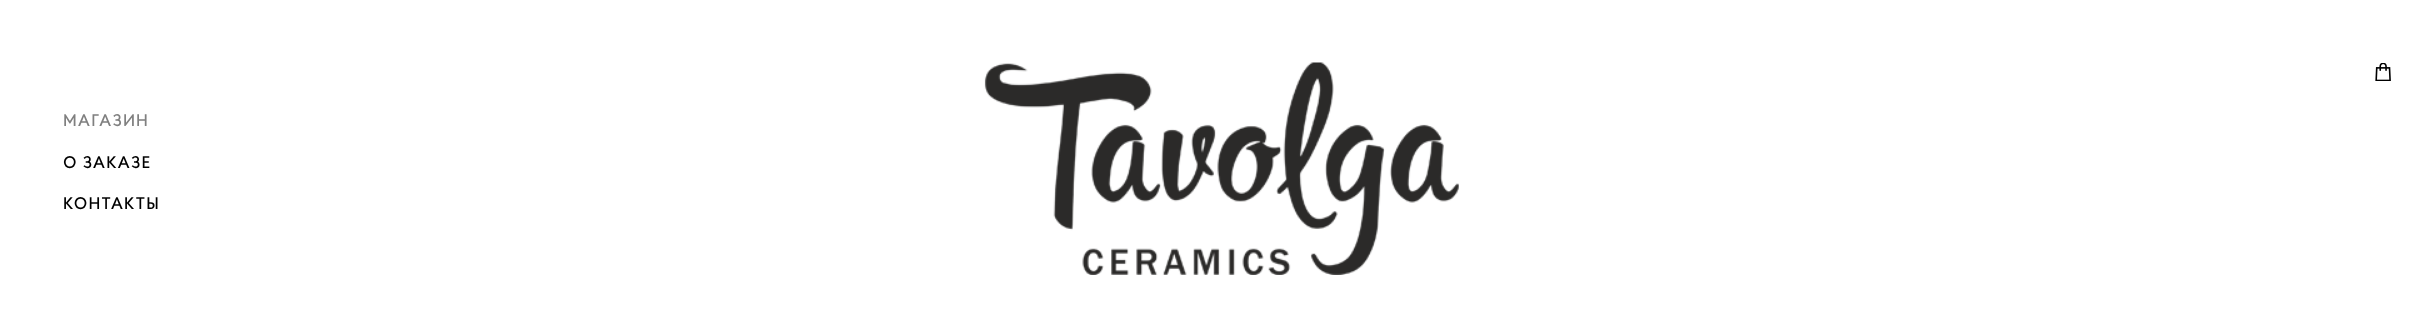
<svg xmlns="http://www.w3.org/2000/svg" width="2431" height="323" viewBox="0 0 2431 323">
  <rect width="100%" height="100%" fill="#fff"/>
  <image x="984" y="62" width="475" height="213" href="img/1.png"/>
  <image x="2375" y="63" width="16" height="18" href="img/2.png"/>
  <text x="63" y="126" font-family="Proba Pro" font-size="16.25" font-weight="bold" letter-spacing="1.5" fill="#808080">МАГАЗИН</text>
  <g font-family="Proba Pro" font-size="16.25" font-weight="bold" letter-spacing="1.5" fill="#000">
    <text x="63" y="168">О ЗАКАЗЕ</text>
    <text x="63" y="209">КОНТАКТЫ</text>
  </g>
</svg>
